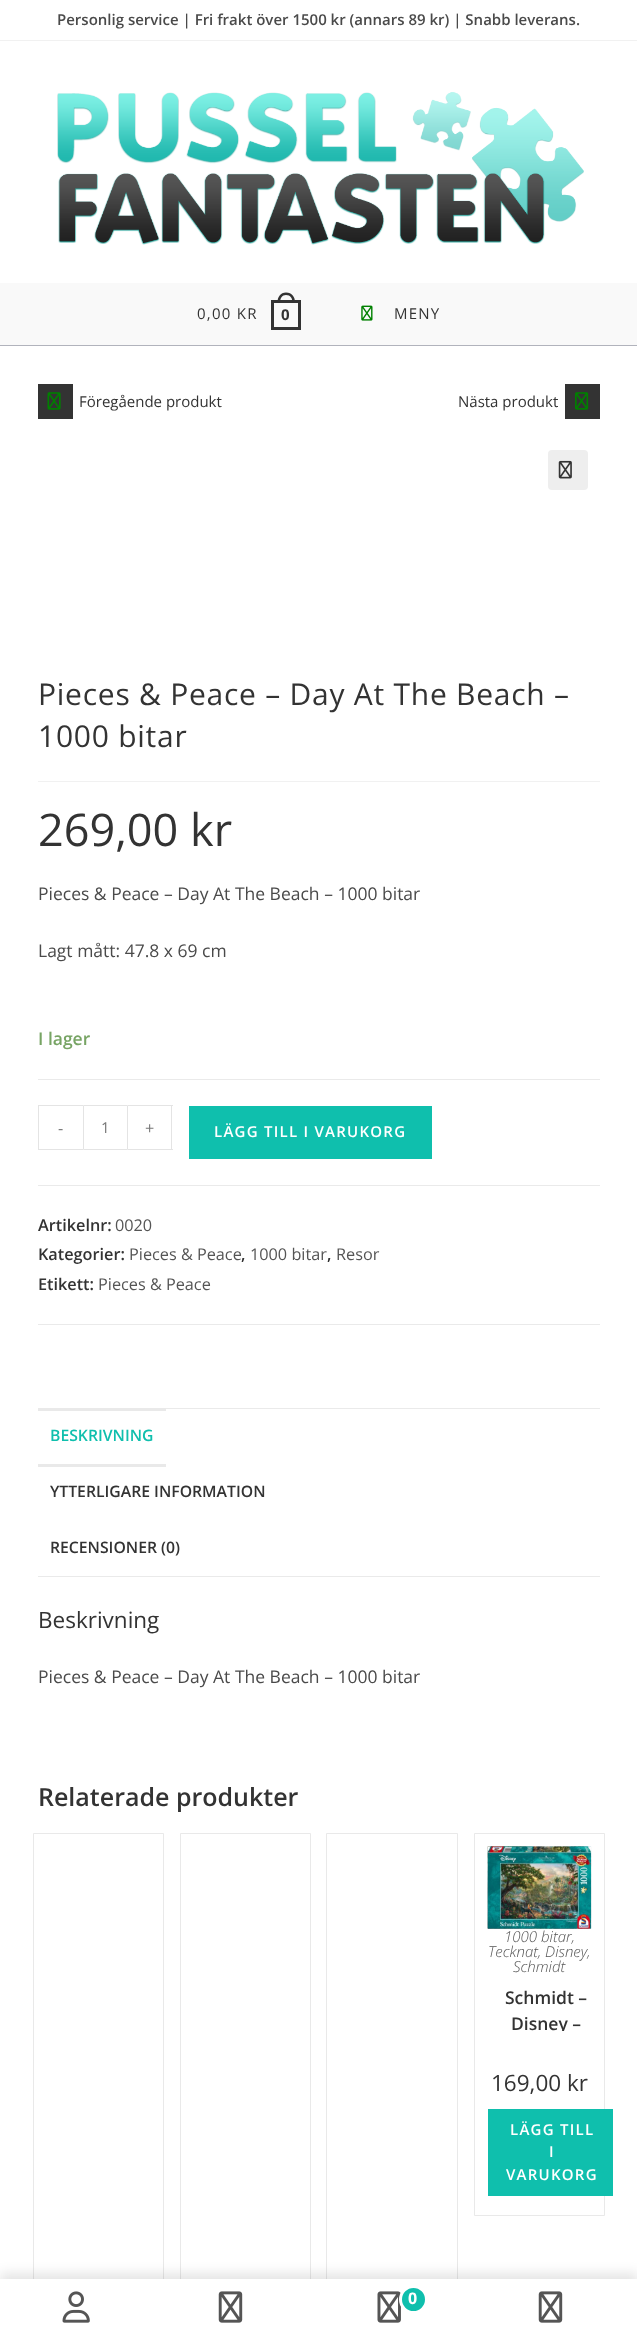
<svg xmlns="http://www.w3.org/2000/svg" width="637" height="2334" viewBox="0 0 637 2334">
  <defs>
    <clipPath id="clip1"><path d="M488 1984h117v47H488z"/></clipPath>
  </defs>
  <rect width="100%" height="100%" fill="#fff"/>
  <path d="M0 40h637v1H0z" fill="#f1f1f1"/>
  <path d="M0 345h637v1H0z" fill="#b1b3bc"/>
  <image x="57" y="92" width="527" height="153" href="img/1.png"/>
  <path d="M0 283h637v62H0z" fill="#f9f9f9"/>
  <path d="M272.5 301.5h27v27H272.5z" fill="none" stroke="#333" stroke-width="3"/>
  <path d="M286 292.5C292 292.5 295 297 295 302.5H277.5C277.5 297 280.5 292.5 286 292.5ZM286 295C290.5 295 292.5 298.5 292.5 302.5H280C280 298.5 282 295 286 295Z" fill="#333" fill-rule="evenodd"/>
  <image x="361" y="305" width="12" height="16" href="img/2.png"/>
  <path d="M38 384h35v35H38z" fill="#333"/>
  <image x="47" y="392" width="14" height="18" href="img/3.png"/>
  <path d="M565 384h35v35H565z" fill="#333"/>
  <image x="575" y="392" width="14" height="18" href="img/4.png"/>
  <rect x="548" y="450" width="40" height="40" rx="4" fill="#eee"/>
  <image x="558" y="460" width="14" height="19" href="img/5.png"/>
  <path d="M38 781h562v1H38z" fill="#f1f1f1"/>
  <path d="M38 1079h562v1H38z" fill="#eaeaea"/>
  <path d="M38 1185h562v1H38z" fill="#eaeaea"/>
  <path d="M38 1105h45v1H38z" fill="#e4e4e4"/>
  <path d="M38 1149h45v1H38z" fill="#e4e4e4"/>
  <path d="M38 1105h1v45H38z" fill="#e4e4e4"/>
  <path d="M83.5 1105.5h44v44H83.5z" fill="none" stroke="#e4e4e4"/>
  <path d="M128 1105h45v1H128z" fill="#e4e4e4"/>
  <path d="M171 1105h1v45H171z" fill="#e4e4e4"/>
  <path d="M128 1149h45v1H128z" fill="#e4e4e4"/>
  <path d="M189 1106h243v53H189z" fill="#0fbfad"/>
  <path d="M38 1324h562v1H38z" fill="#eaeaea"/>
  <path d="M166 1408h434v1H166z" fill="#eaeaea"/>
  <path d="M38 1576h562v1H38z" fill="#eaeaea"/>
  <path d="M38 1408h128v3H38z" fill="#e9e9e9"/>
  <path d="M38 1464h128v3H38z" fill="#e9e9e9"/>
  <path d="M33.5 1833.5h130v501H33.5z" fill="none" stroke="#e9e9e9"/>
  <path d="M180.5 1833.5h130v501H180.5z" fill="none" stroke="#e9e9e9"/>
  <path d="M326.5 1833.5h131v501H326.5z" fill="none" stroke="#e9e9e9"/>
  <path d="M474.5 1833.5h130v382H474.5z" fill="none" stroke="#e9e9e9"/>
  <image x="487" y="1846" width="105" height="83" href="img/6.png"/>
  <image x="487" y="1846" width="105" height="83" href="img/7.png"/>
  <path d="M488 2109h125v87H488z" fill="#0fbfad"/>
  <path d="M0 2273h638v56H0z" fill="#0000001a" filter="blur(6px)"/>
  <path d="M0 2279h637v55H0z" fill="#fff"/>
  <image x="62" y="2291" width="28" height="32" href="img/8.png"/>
  <image x="218" y="2291" width="25" height="32" href="img/9.png"/>
  <image x="377" y="2291" width="24" height="32" href="img/10.png"/>
  <circle cx="413.5" cy="2299.5" r="13" fill="#0fbfad" stroke="#fff" stroke-width="3"/>
  <image x="538" y="2291" width="25" height="32" href="img/9.png"/>
  <text x="57" y="25" font-family="Open Sans" font-size="15" font-weight="600" fill="#4a4a4a">Personlig service | Fri frakt över 1500 kr (annars 89 kr) | Snabb leverans.</text>
  <text x="197" y="319" font-family="Open Sans" font-size="15" letter-spacing="1.25" fill="#333">0,00 KR</text>
  <text x="281" y="320" font-family="Open Sans" font-size="15" font-weight="bold" letter-spacing="1.25" fill="#333">0</text>
  <text x="394" y="319" font-family="Open Sans" font-size="15" letter-spacing="1.25" fill="#333">MENY</text>
  <g font-family="Open Sans" font-size="15" fill="#333">
    <text x="79" y="407">Föregående produkt</text>
    <text x="458" y="407">Nästa produkt</text>
  </g>
  <g font-family="Open Sans" font-size="30" letter-spacing="0.75" fill="#333">
    <text x="38" y="705">Pieces &amp; Peace – Day At The Beach –</text>
    <text x="38" y="747">1000 bitar</text>
  </g>
  <text x="38" y="846" font-family="Open Sans" font-size="45" fill="#333">269,00 kr</text>
  <g font-family="Open Sans" font-size="17.5" fill="#4a4a4a">
    <text x="38" y="900">Pieces &amp; Peace – Day At The Beach – 1000 bitar</text>
    <text x="38" y="957">Lagt mått: 47.8 x 69 cm</text>
  </g>
  <text x="38" y="1045" font-family="Open Sans" font-size="17.5" font-weight="600" fill="#77a464">I lager</text>
  <text x="58" y="1134" font-family="Open Sans" font-size="16.25" fill="#777">-</text>
  <text x="101" y="1133" font-family="Open Sans" font-size="15" fill="#777">1</text>
  <text x="145" y="1134" font-family="Open Sans" font-size="16.25" fill="#777">+</text>
  <text x="214" y="1137" font-family="Open Sans" font-size="15" font-weight="600" letter-spacing="1.25" fill="#fff">LÄGG TILL I VARUKORG</text>
  <text x="38" y="1231" font-family="Open Sans" font-size="16.25" font-weight="600" fill="#333">Artikelnr:</text>
  <text x="115" y="1231" font-family="Open Sans" font-size="16.25" fill="#555">0020</text>
  <text x="38" y="1260" font-family="Open Sans" font-size="16.25" font-weight="600" fill="#333">Kategorier:</text>
  <text x="129" y="1260" font-family="Open Sans" font-size="16.25" fill="#555">Pieces &amp; Peace</text>
  <text x="241" y="1260" font-family="Open Sans" font-size="16.25" font-weight="600" fill="#333">,</text>
  <text x="250" y="1260" font-family="Open Sans" font-size="16.25" fill="#555">1000 bitar</text>
  <text x="327" y="1260" font-family="Open Sans" font-size="16.25" font-weight="600" fill="#333">,</text>
  <text x="336" y="1260" font-family="Open Sans" font-size="16.25" fill="#555">Resor</text>
  <text x="38" y="1290" font-family="Open Sans" font-size="16.25" font-weight="600" fill="#333">Etikett:</text>
  <text x="98" y="1290" font-family="Open Sans" font-size="16.25" fill="#555">Pieces &amp; Peace</text>
  <text x="50" y="1441" font-family="Open Sans" font-size="15.75" font-weight="600" fill="#0fbfad">BESKRIVNING</text>
  <g font-family="Open Sans" font-size="15.75" font-weight="600" fill="#333">
    <text x="50" y="1497">YTTERLIGARE INFORMATION</text>
    <text x="50" y="1553">RECENSIONER (0)</text>
  </g>
  <text x="38" y="1628" font-family="Open Sans" font-size="22.5" fill="#333">Beskrivning</text>
  <text x="38" y="1683" font-family="Open Sans" font-size="17.5" fill="#4a4a4a">Pieces &amp; Peace – Day At The Beach – 1000 bitar</text>
  <text x="38" y="1806" font-family="Open Sans" font-size="25" font-weight="600" fill="#333">Relaterade produkter</text>
  <g font-family="Open Sans" font-size="15" font-weight="300" font-style="italic" fill="#555">
    <text x="504" y="1942">1000 bitar,</text>
    <text x="488" y="1957">Tecknat, Disney,</text>
    <text x="513" y="1972">Schmidt</text>
  </g>
  <text x="505" y="2004" font-family="Open Sans" font-size="17.5" font-weight="600" fill="#333">Schmidt –</text>
  <g clip-path="url(#clip1)">
    <text x="511" y="2030" font-family="Open Sans" font-size="17.5" font-weight="600" fill="#333">Disney –</text>
  </g>
  <text x="491" y="2091" font-family="Open Sans" font-size="22.5" fill="#333">169,00 kr</text>
  <g font-family="Open Sans" font-size="15" font-weight="600" letter-spacing="1.25" fill="#fff">
    <text x="510" y="2135">LÄGG TILL</text>
    <text x="549" y="2157">I</text>
    <text x="506" y="2180">VARUKORG</text>
  </g>
  <text x="408" y="2304" font-family="Open Sans" font-size="16" font-weight="bold" fill="#fff">0</text>
</svg>
